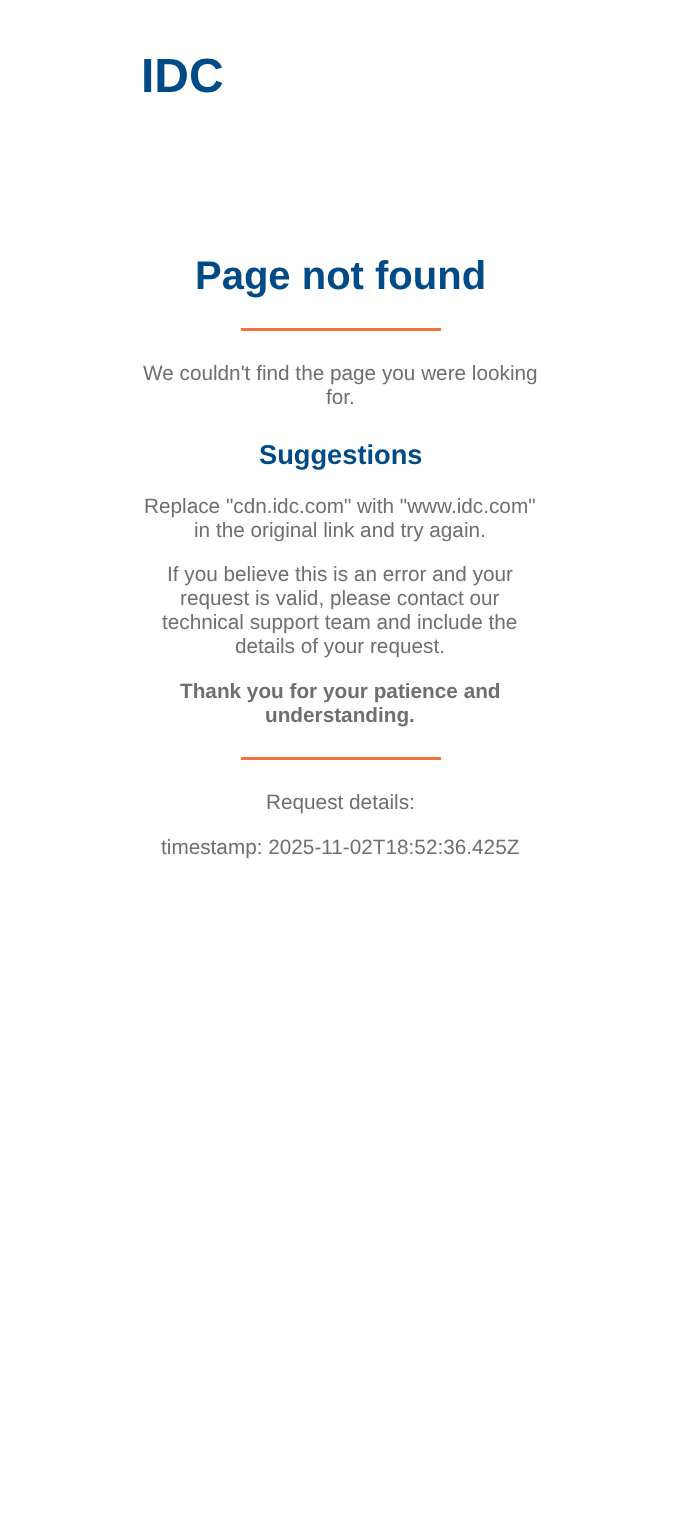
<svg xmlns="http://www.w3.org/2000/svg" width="681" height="1534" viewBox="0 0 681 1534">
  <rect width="100%" height="100%" fill="#fff"/>
  <path d="M241 328h200v3H241z" fill="#f76d3d"/>
  <path d="M241 757h200v3H241z" fill="#f76d3d"/>
  <text x="141" y="92" font-family="Liberation Sans" font-size="48" font-weight="bold" fill="#004b85">IDC</text>
  <text x="195" y="289" font-family="Liberation Sans" font-size="40" font-weight="bold" fill="#004b85">Page not found</text>
  <g font-family="Liberation Sans" font-size="20.75" fill="#6f6f6f">
    <text x="143" y="380">We couldn't find the page you were looking</text>
    <text x="326" y="404">for.</text>
  </g>
  <text x="259" y="464" font-family="Liberation Sans" font-size="27.25" font-weight="bold" fill="#004b85">Suggestions</text>
  <g font-family="Liberation Sans" font-size="20.75" fill="#6f6f6f">
    <text x="144" y="513">Replace "cdn.idc.com" with "www.idc.com"</text>
    <text x="194" y="537">in the original link and try again.</text>
    <text x="167" y="581">If you believe this is an error and your</text>
    <text x="180" y="605">request is valid, please contact our</text>
    <text x="162" y="629">technical support team and include the</text>
    <text x="235" y="653">details of your request.</text>
  </g>
  <g font-family="Liberation Sans" font-size="20.75" font-weight="bold" fill="#6f6f6f">
    <text x="180" y="698">Thank you for your patience and</text>
    <text x="265" y="722">understanding.</text>
  </g>
  <g font-family="Liberation Sans" font-size="20.75" fill="#6f6f6f">
    <text x="266" y="809">Request details:</text>
    <text x="161" y="854">timestamp: 2025-11-02T18:52:36.425Z</text>
  </g>
</svg>
